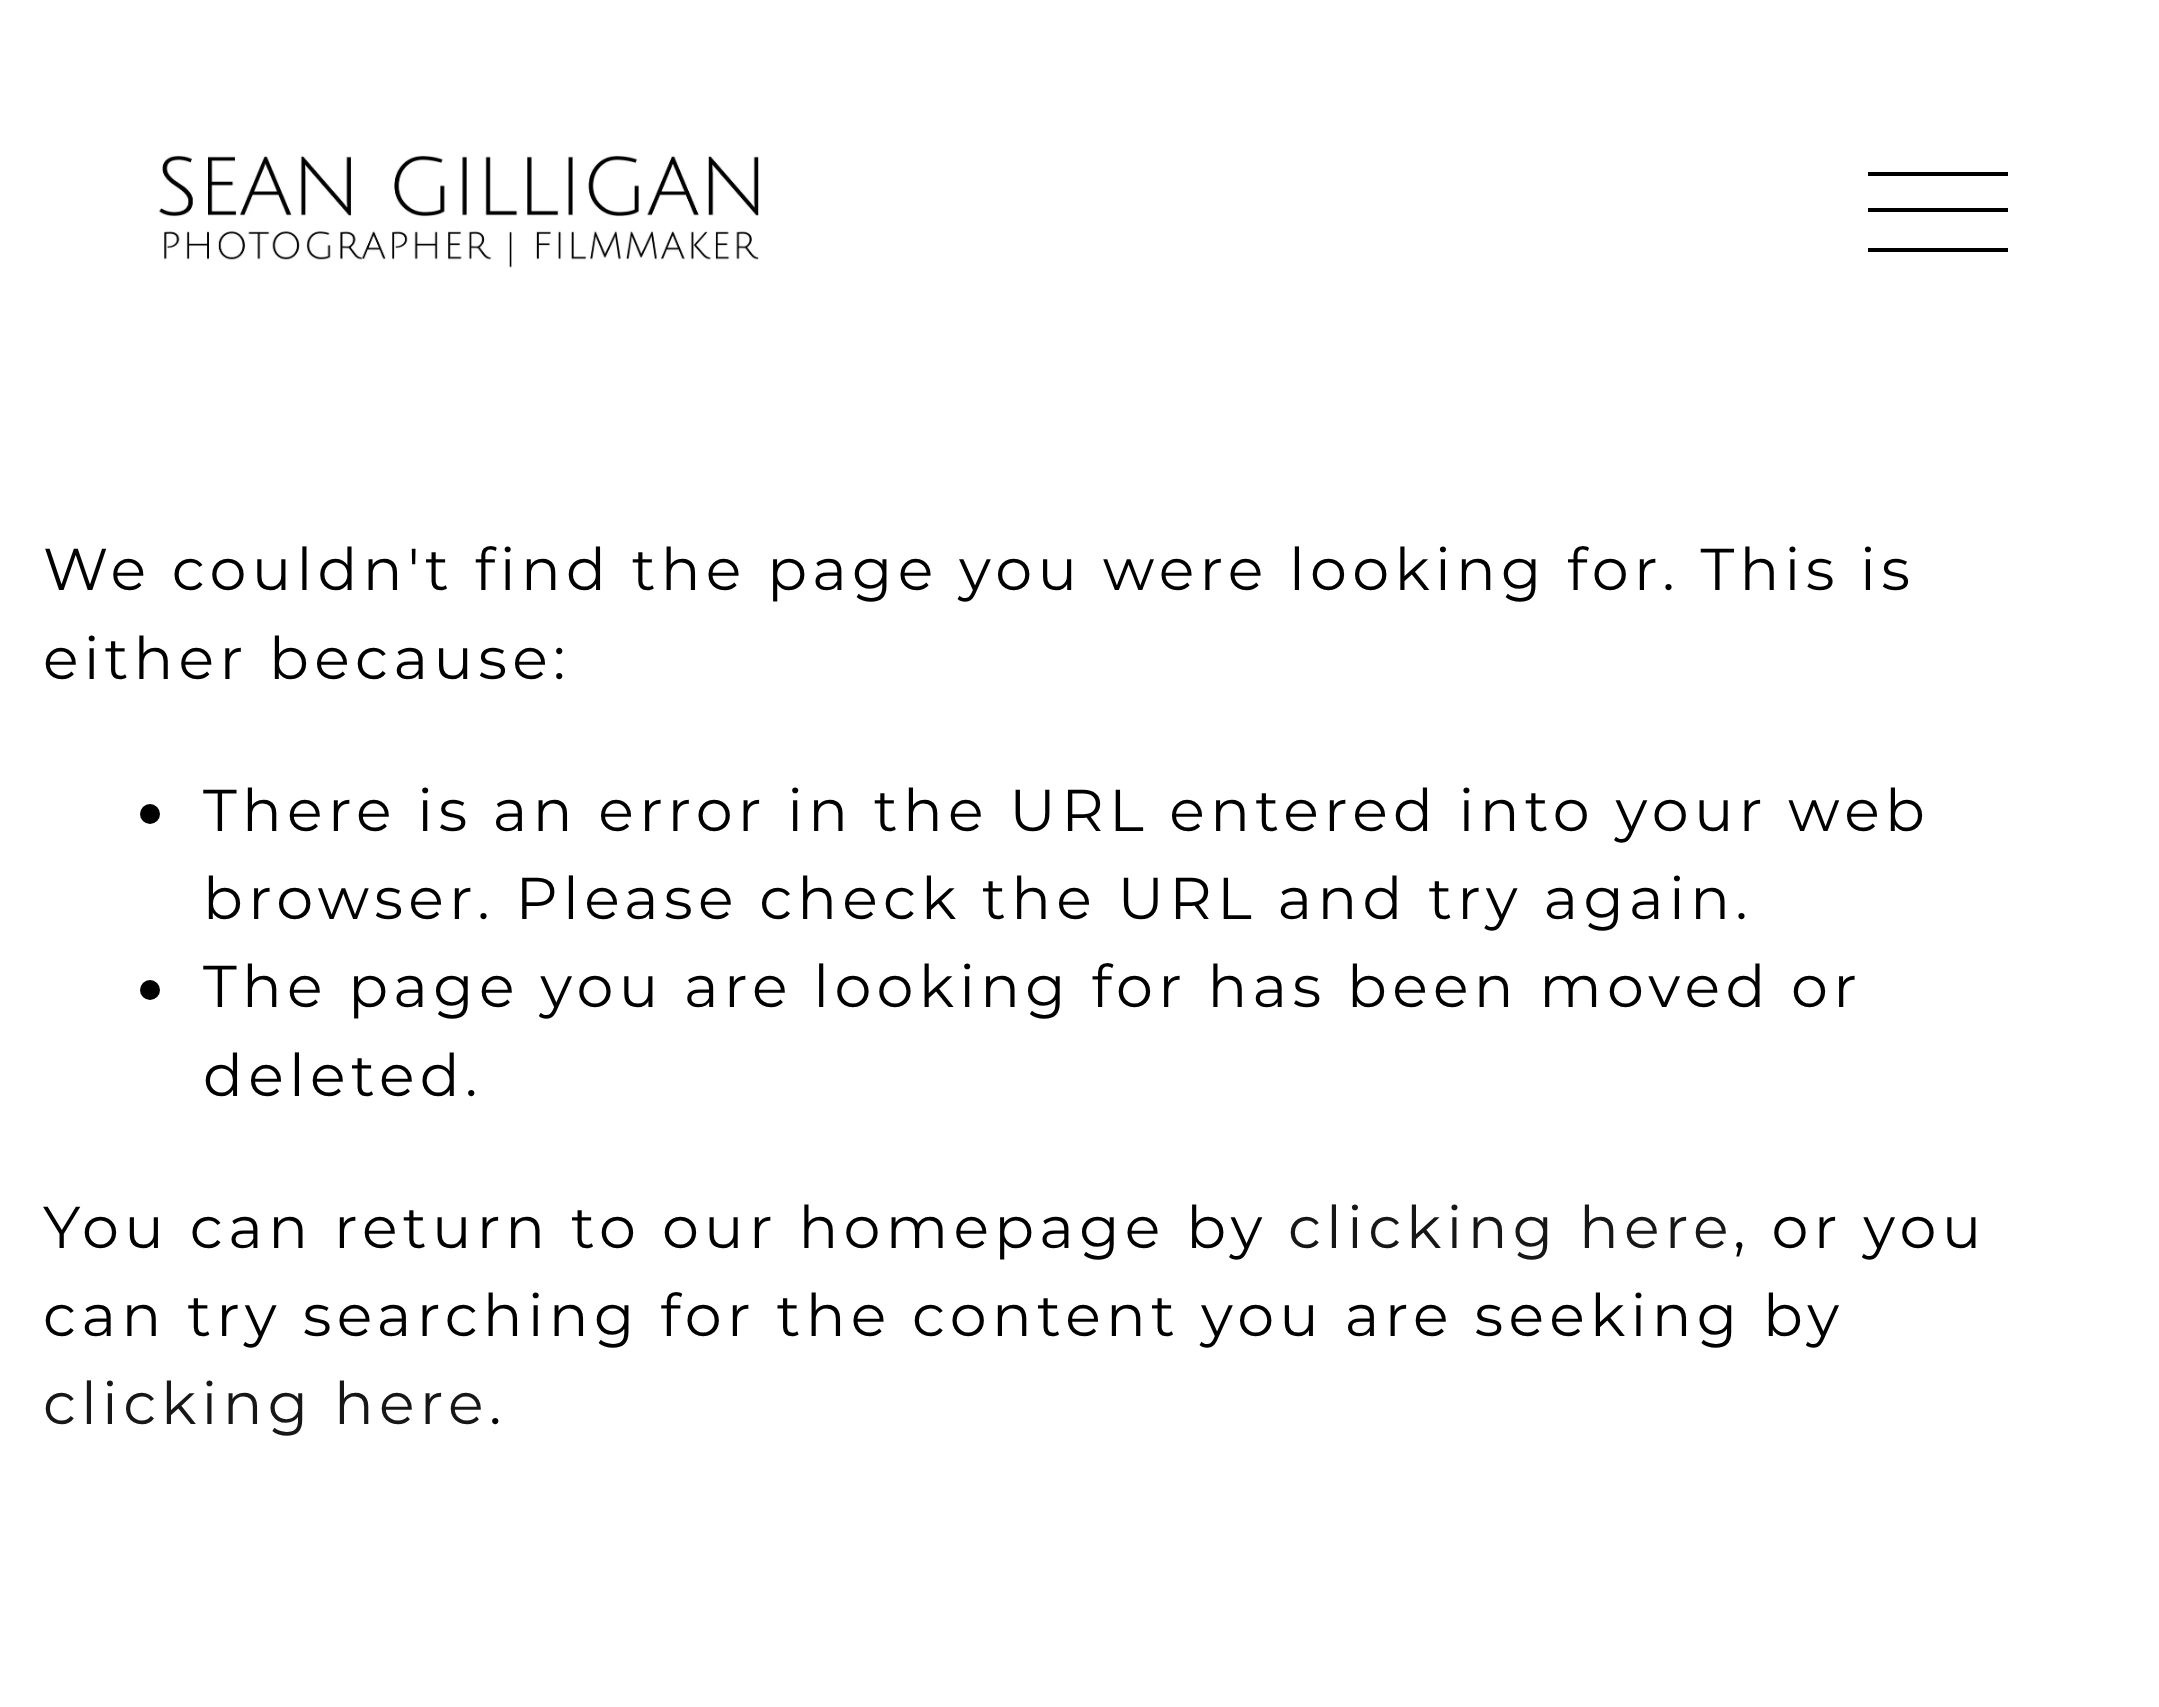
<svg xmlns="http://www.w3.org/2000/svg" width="2159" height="1707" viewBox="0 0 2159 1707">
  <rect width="100%" height="100%" fill="#fff"/>
  <image x="159" y="155" width="600" height="113" href="img/1.png"/>
  <path d="M1868 172h140v4H1868z" fill="#000"/>
  <path d="M1868 208h140v4H1868z" fill="#000"/>
  <path d="M1868 248h140v4H1868z" fill="#000"/>
  <circle cx="150" cy="814" r="10" fill="#000"/>
  <circle cx="150" cy="990" r="10" fill="#000"/>
  <g font-family="Montserrat" font-size="58.8" letter-spacing="5.3" fill="#000">
    <text x="43" y="590" word-spacing="-0.25">We couldn't find the page you were looking for. This is</text>
    <text x="43" y="679">either because:</text>
    <text x="203" y="831" word-spacing="-0.25">There is an error in the URL entered into your web</text>
    <text x="203" y="919" word-spacing="-0.25">browser. Please check the URL and try again.</text>
    <text x="203" y="1007" word-spacing="-0.25">The page you are looking for has been moved or</text>
    <text x="203" y="1096">deleted.</text>
    <text x="43" y="1248">You can return to our homepage by</text>
  </g>
  <text x="1288" y="1248" font-family="Montserrat" font-size="58.8" letter-spacing="5.3" fill="#171717">clicking here</text>
  <g font-family="Montserrat" font-size="58.8" letter-spacing="5.3" fill="#000">
    <text x="1733" y="1248">, or you</text>
    <text x="43" y="1336">can try searching for the</text>
    <text x="912" y="1336">content you are seeking by</text>
  </g>
  <text x="43" y="1424" font-family="Montserrat" font-size="58.8" letter-spacing="5.3" fill="#171717">clicking here</text>
  <text x="489" y="1424" font-family="Montserrat" font-size="58.8" letter-spacing="5.3" fill="#000">.</text>
</svg>
